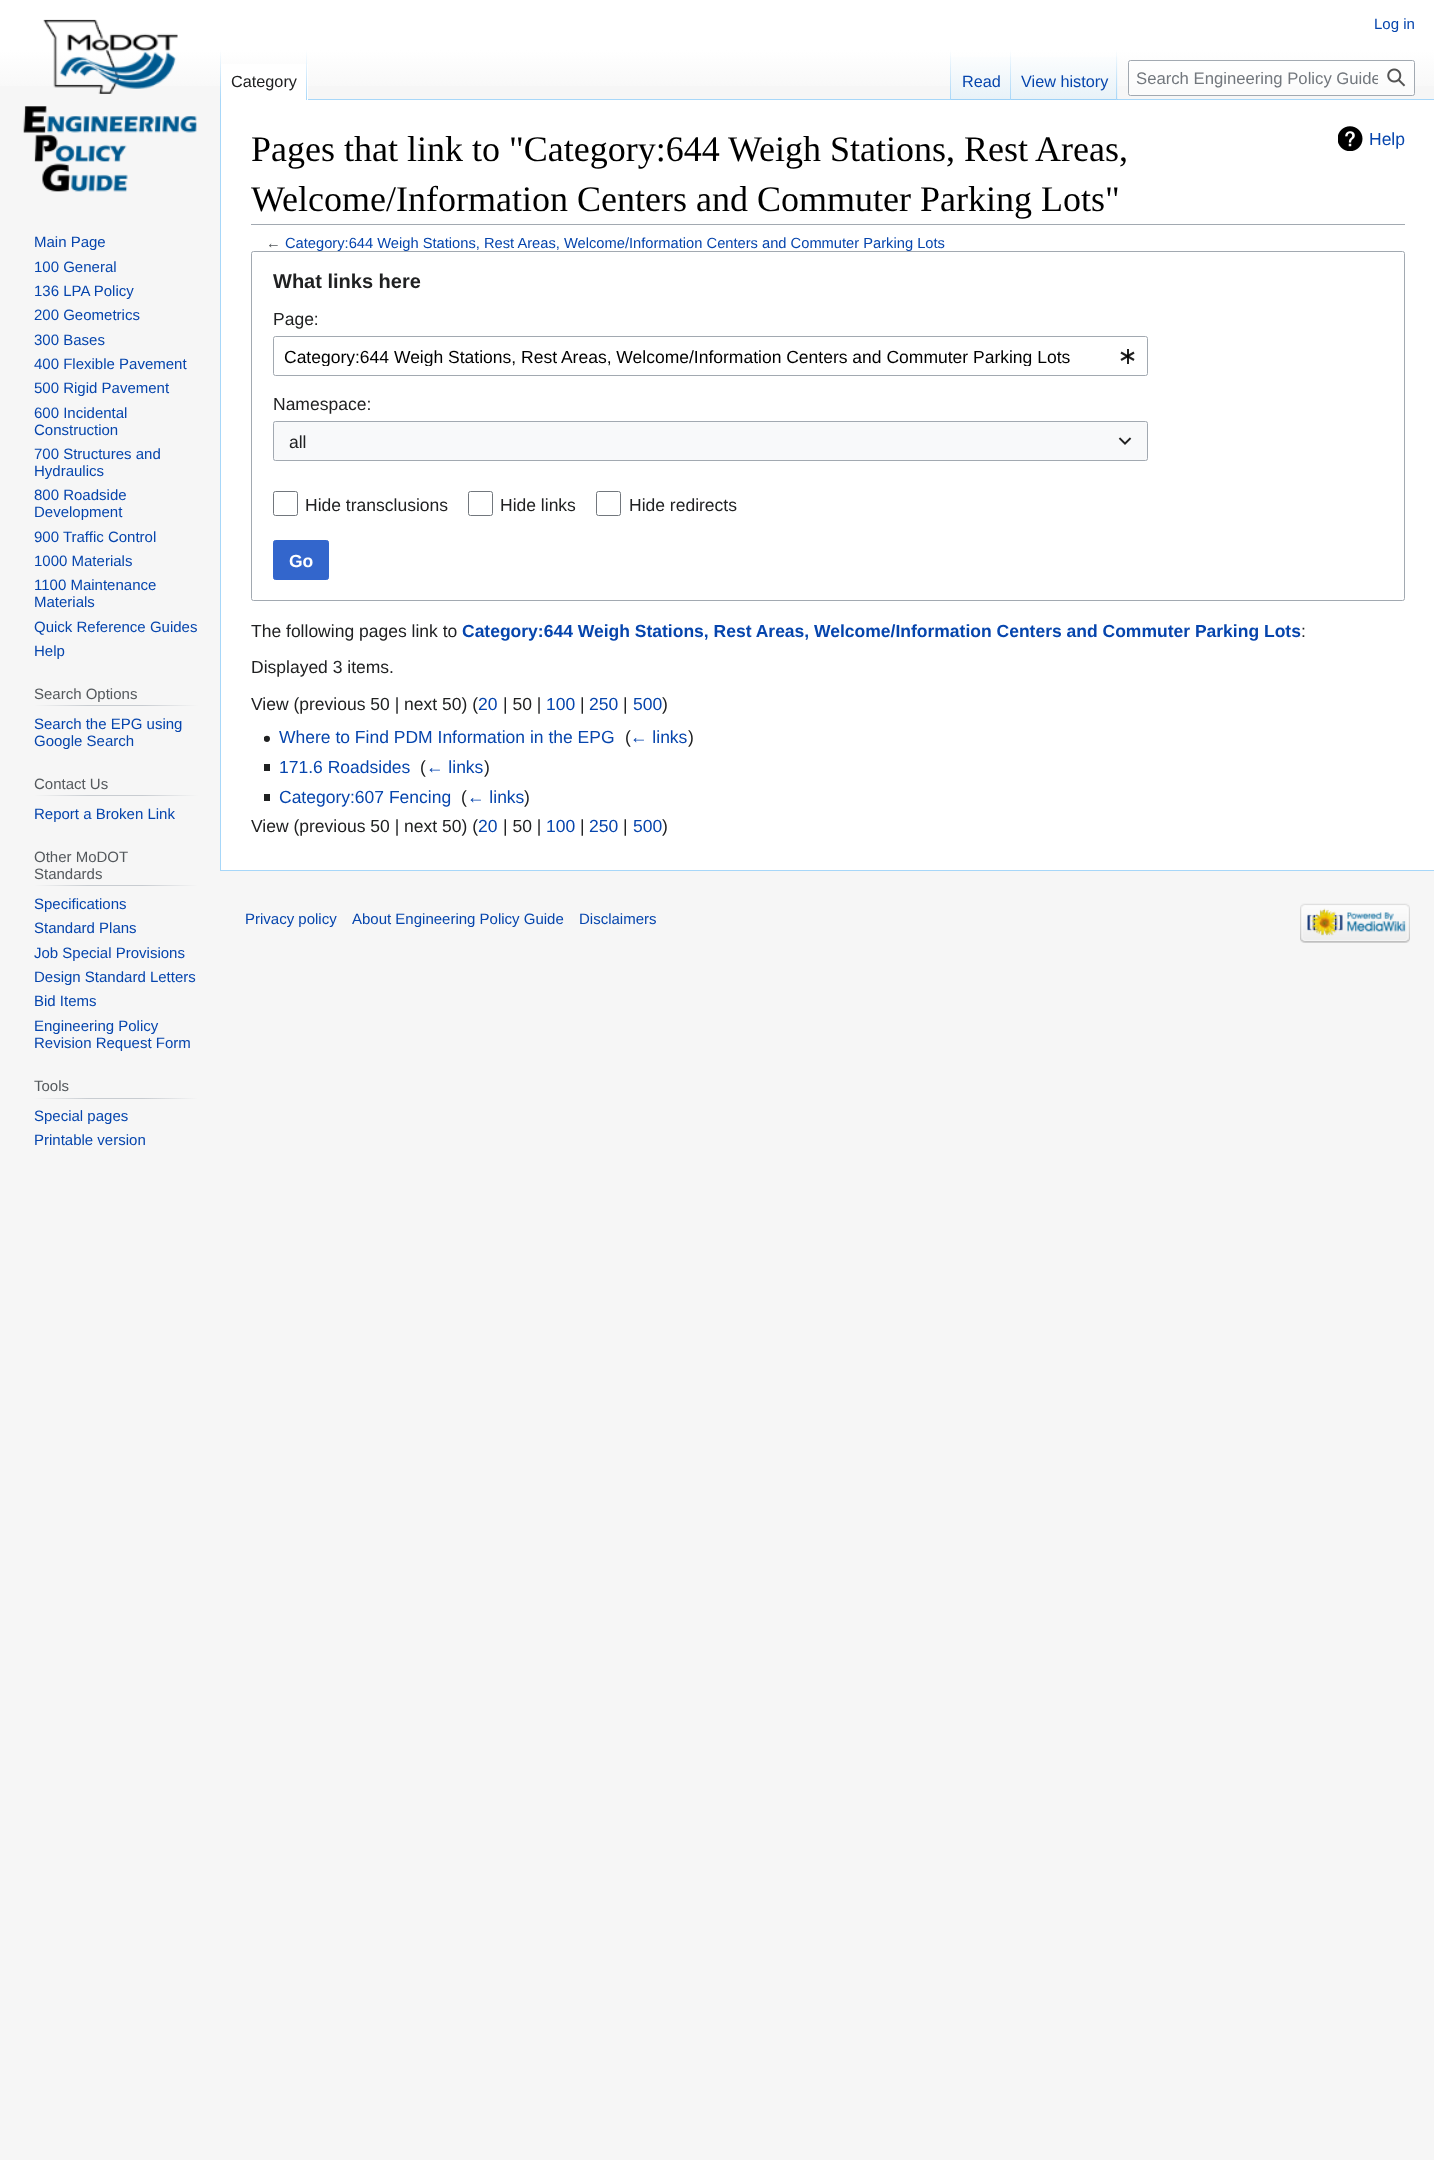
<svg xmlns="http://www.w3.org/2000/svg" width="1434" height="2160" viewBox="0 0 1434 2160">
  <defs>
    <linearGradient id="g1" gradientUnits="userSpaceOnUse" x1="718" y1="0" x2="718" y2="100"><stop offset="0.5" stop-color="#fff"/><stop offset="1" stop-color="#f6f6f6"/></linearGradient>
    <linearGradient id="g2" gradientUnits="userSpaceOnUse" x1="221" y1="50" x2="221" y2="100"><stop offset="0" stop-color="#a7d7f9" stop-opacity="0"/><stop offset="1" stop-color="#a7d7f9"/></linearGradient>
    <linearGradient id="g3" gradientUnits="userSpaceOnUse" x1="307" y1="50" x2="307" y2="100"><stop offset="0" stop-color="#fff"/><stop offset="1" stop-color="#a7d7f9"/></linearGradient>
    <linearGradient id="g4" gradientUnits="userSpaceOnUse" x1="951" y1="50" x2="951" y2="100"><stop offset="0" stop-color="#a7d7f9" stop-opacity="0"/><stop offset="1" stop-color="#a7d7f9"/></linearGradient>
    <linearGradient id="g5" gradientUnits="userSpaceOnUse" x1="981" y1="100" x2="981" y2="50"><stop offset="0" stop-color="#77c1f6"/><stop offset="0.03" stop-color="#e8f2f8"/><stop offset="1" stop-color="#fff"/></linearGradient>
    <linearGradient id="g6" gradientUnits="userSpaceOnUse" x1="1011" y1="50" x2="1011" y2="100"><stop offset="0" stop-color="#a7d7f9" stop-opacity="0"/><stop offset="1" stop-color="#a7d7f9"/></linearGradient>
    <linearGradient id="g7" gradientUnits="userSpaceOnUse" x1="1064" y1="100" x2="1064" y2="50"><stop offset="0" stop-color="#77c1f6"/><stop offset="0.03" stop-color="#e8f2f8"/><stop offset="1" stop-color="#fff"/></linearGradient>
    <linearGradient id="g8" gradientUnits="userSpaceOnUse" x1="1117" y1="50" x2="1117" y2="100"><stop offset="0" stop-color="#a7d7f9" stop-opacity="0"/><stop offset="1" stop-color="#a7d7f9"/></linearGradient>
    <linearGradient id="g9" gradientUnits="userSpaceOnUse" x1="34" y1="706" x2="198" y2="706"><stop offset="0" stop-color="#f6f6f6"/><stop offset="0.33" stop-color="#c8ccd1"/><stop offset="0.66" stop-color="#c8ccd1"/><stop offset="1" stop-color="#f6f6f6"/></linearGradient>
    <linearGradient id="g10" gradientUnits="userSpaceOnUse" x1="34" y1="796" x2="198" y2="796"><stop offset="0" stop-color="#f6f6f6"/><stop offset="0.33" stop-color="#c8ccd1"/><stop offset="0.66" stop-color="#c8ccd1"/><stop offset="1" stop-color="#f6f6f6"/></linearGradient>
    <linearGradient id="g11" gradientUnits="userSpaceOnUse" x1="34" y1="886" x2="198" y2="886"><stop offset="0" stop-color="#f6f6f6"/><stop offset="0.33" stop-color="#c8ccd1"/><stop offset="0.66" stop-color="#c8ccd1"/><stop offset="1" stop-color="#f6f6f6"/></linearGradient>
    <linearGradient id="g12" gradientUnits="userSpaceOnUse" x1="34" y1="1098" x2="198" y2="1098"><stop offset="0" stop-color="#f6f6f6"/><stop offset="0.33" stop-color="#c8ccd1"/><stop offset="0.66" stop-color="#c8ccd1"/><stop offset="1" stop-color="#f6f6f6"/></linearGradient>
    <clipPath id="clip1"><path d="M1136 69h242v19H1136z"/></clipPath>
    <clipPath id="clip2"><path d="M284 346h827v20H284z"/></clipPath>
  </defs>
  <rect width="100%" height="100%" fill="#f6f6f6"/>
  <path d="M0 0h1434v86H0z" fill="url(#g1)"/>
  <path d="M220 870h1214v1H220z" fill="#a7d7f9"/>
  <path d="M220 99h1v772H220z" fill="#a7d7f9"/>
  <path d="M220 50h1v50H220z" fill="url(#g2)"/>
  <path d="M221 64h87v36H221z" fill="#fff"/>
  <path d="M306 50h1v50H306z" fill="url(#g3)"/>
  <path d="M308 99h1126v1H308z" fill="#a7d7f9"/>
  <path d="M950 50h1v50H950z" fill="url(#g4)"/>
  <path d="M951 57h60v43H951z" fill="url(#g5)"/>
  <path d="M1010 50h1v50H1010z" fill="url(#g6)"/>
  <path d="M1011 57h107v43H1011z" fill="url(#g7)"/>
  <path d="M1116 50h1v50H1116z" fill="url(#g8)"/>
  <rect x="1128.5" y="60.5" width="286" height="35" rx="2" fill="#ffffff80" stroke="#a2a9b1"/>
  <image x="1387" y="68" width="19" height="19" href="img/1.png"/>
  <image x="23" y="19" width="174" height="173" href="img/2.png"/>
  <path d="M34 705h164v1H34z" fill="url(#g9)"/>
  <path d="M34 795h164v1H34z" fill="url(#g10)"/>
  <path d="M34 885h164v1H34z" fill="url(#g11)"/>
  <path d="M34 1098h164v1H34z" fill="url(#g12)"/>
  <path d="M221 100h1213v770H221z" fill="#fff"/>
  <path d="M251 224h1154v1H251z" fill="#a2a9b1"/>
  <image x="1338" y="126" width="25" height="25" href="img/3.png"/>
  <image x="264" y="735" width="6" height="7" href="img/6.png"/>
  <path d="M264 764h6v7H264z" fill="#202122"/>
  <path d="M264 794h6v7H264z" fill="#202122"/>
  <image x="1300" y="903" width="110" height="40" href="img/7.png"/>
  <text x="1374" y="29" font-family="Liberation Sans" font-size="15" fill="#0645ad">Log in</text>
  <text x="231" y="87" font-family="Liberation Sans" font-size="16.25" fill="#202122">Category</text>
  <g font-family="Liberation Sans" font-size="16.25" fill="#0645ad">
    <text x="962" y="87">Read</text>
    <text x="1021" y="87">View history</text>
  </g>
  <g clip-path="url(#clip1)">
    <text x="1136" y="84" font-family="Liberation Sans" font-size="16.7" fill="#72777d">Search Engineering Policy Guide</text>
  </g>
  <g font-family="Liberation Sans" font-size="15" fill="#0645ad">
    <text x="34" y="247">Main Page</text>
    <text x="34" y="272">100 General</text>
    <text x="34" y="296">136 LPA Policy</text>
    <text x="34" y="320">200 Geometrics</text>
    <text x="34" y="345">300 Bases</text>
    <text x="34" y="369">400 Flexible Pavement</text>
    <text x="34" y="393">500 Rigid Pavement</text>
    <text x="34" y="418">600 Incidental</text>
    <text x="34" y="435">Construction</text>
    <text x="34" y="459">700 Structures and</text>
    <text x="34" y="476">Hydraulics</text>
    <text x="34" y="500">800 Roadside</text>
    <text x="34" y="517">Development</text>
    <text x="34" y="542">900 Traffic Control</text>
    <text x="34" y="566">1000 Materials</text>
    <text x="34" y="590">1100 Maintenance</text>
    <text x="34" y="607">Materials</text>
    <text x="34" y="632">Quick Reference Guides</text>
    <text x="34" y="656">Help</text>
  </g>
  <text x="34" y="699" font-family="Liberation Sans" font-size="15" fill="#54595d">Search Options</text>
  <g font-family="Liberation Sans" font-size="15" fill="#0645ad">
    <text x="34" y="729">Search the EPG using</text>
    <text x="34" y="746">Google Search</text>
  </g>
  <text x="34" y="789" font-family="Liberation Sans" font-size="15" fill="#54595d">Contact Us</text>
  <text x="34" y="819" font-family="Liberation Sans" font-size="15" fill="#0645ad">Report a Broken Link</text>
  <g font-family="Liberation Sans" font-size="15" fill="#54595d">
    <text x="34" y="862">Other MoDOT</text>
    <text x="34" y="879">Standards</text>
  </g>
  <g font-family="Liberation Sans" font-size="15" fill="#0645ad">
    <text x="34" y="909">Specifications</text>
    <text x="34" y="933">Standard Plans</text>
    <text x="34" y="958">Job Special Provisions</text>
    <text x="34" y="982">Design Standard Letters</text>
    <text x="34" y="1006">Bid Items</text>
    <text x="34" y="1031">Engineering Policy</text>
    <text x="34" y="1048">Revision Request Form</text>
  </g>
  <text x="34" y="1091" font-family="Liberation Sans" font-size="15" fill="#54595d">Tools</text>
  <g font-family="Liberation Sans" font-size="15" fill="#0645ad">
    <text x="34" y="1121">Special pages</text>
    <text x="34" y="1145">Printable version</text>
  </g>
  <g font-family="Liberation Serif" font-size="36" fill="#000">
    <text x="251" y="161">Pages that link to "Category:644 Weigh Stations, Rest Areas,</text>
    <text x="251" y="211">Welcome/Information Centers and Commuter Parking Lots"</text>
  </g>
  <text x="1369" y="145" font-family="Liberation Sans" font-size="17.5" fill="#0645ad">Help</text>
  <text x="266" y="248" font-family="Liberation Sans" font-size="14.7" fill="#54595d">←</text>
  <text x="285" y="248" font-family="Liberation Sans" font-size="14.7" fill="#0645ad">Category:644 Weigh Stations, Rest Areas, Welcome/Information Centers and Commuter Parking Lots</text>
  <rect x="251.5" y="251.5" width="1153" height="349" rx="2" fill="none" stroke="#a2a9b1"/>
  <text x="273" y="288" font-family="Liberation Sans" font-size="20" font-weight="bold" fill="#202122">What links here</text>
  <text x="273" y="325" font-family="Liberation Sans" font-size="17.5" fill="#202122">Page:</text>
  <rect x="273.5" y="336.5" width="874" height="39" rx="2" fill="none" stroke="#a2a9b1"/>
  <g clip-path="url(#clip2)">
    <text x="284" y="363" font-family="Liberation Sans" font-size="17.5" fill="#000">Category:644 Weigh Stations, Rest Areas, Welcome/Information Centers and Commuter Parking Lots</text>
  </g>
  <image x="1120" y="349" width="15" height="15" href="img/4.png"/>
  <text x="273" y="410" font-family="Liberation Sans" font-size="17.5" fill="#202122">Namespace:</text>
  <path d="M273 421h875v40H273z" fill="#f8f9fa"/>
  <rect x="273.5" y="421.5" width="874" height="39" rx="2" fill="none" stroke="#a2a9b1"/>
  <text x="289" y="448" font-family="Liberation Sans" font-size="17.5" fill="#202122">all</text>
  <image x="1118" y="437" width="14" height="8" href="img/5.png"/>
  <rect x="273.5" y="491.5" width="24" height="24" rx="2" fill="none" stroke="#72777d"/>
  <text x="305" y="511" font-family="Liberation Sans" font-size="17.5" fill="#202122">Hide transclusions</text>
  <rect x="468.5" y="491.5" width="24" height="24" rx="2" fill="none" stroke="#72777d"/>
  <text x="500" y="511" font-family="Liberation Sans" font-size="17.5" fill="#202122">Hide links</text>
  <rect x="596.5" y="491.5" width="24" height="24" rx="2" fill="none" stroke="#72777d"/>
  <text x="629" y="511" font-family="Liberation Sans" font-size="17.5" fill="#202122">Hide redirects</text>
  <rect x="273.5" y="540.5" width="55" height="39" rx="2" fill="#36c" stroke="#36c"/>
  <text x="289" y="567" font-family="Liberation Sans" font-size="17.5" font-weight="bold" fill="#fff">Go</text>
  <text x="251" y="637" font-family="Liberation Sans" font-size="17.5" fill="#202122">The following pages link to</text>
  <text x="462" y="637" font-family="Liberation Sans" font-size="17.5" font-weight="bold" fill="#0645ad">Category:644 Weigh Stations, Rest Areas, Welcome/Information Centers and Commuter Parking Lots</text>
  <g font-family="Liberation Sans" font-size="17.5" fill="#202122">
    <text x="1301" y="637">:</text>
    <text x="251" y="673">Displayed 3 items.</text>
    <text x="251" y="710">View (previous 50 | next 50) (</text>
  </g>
  <text x="478" y="710" font-family="Liberation Sans" font-size="17.5" fill="#0645ad">20</text>
  <text x="503" y="710" font-family="Liberation Sans" font-size="17.5" fill="#202122">| 50 |</text>
  <text x="546" y="710" font-family="Liberation Sans" font-size="17.5" fill="#0645ad">100</text>
  <text x="580" y="710" font-family="Liberation Sans" font-size="17.5" fill="#202122">|</text>
  <text x="589" y="710" font-family="Liberation Sans" font-size="17.5" fill="#0645ad">250</text>
  <text x="623" y="710" font-family="Liberation Sans" font-size="17.5" fill="#202122">|</text>
  <text x="633" y="710" font-family="Liberation Sans" font-size="17.5" fill="#0645ad">500</text>
  <text x="662" y="710" font-family="Liberation Sans" font-size="17.5" fill="#202122">)</text>
  <text x="279" y="743" font-family="Liberation Sans" font-size="17.5" fill="#0645ad">Where to Find PDM Information in the EPG</text>
  <text x="625" y="743" font-family="Liberation Sans" font-size="17.5" fill="#202122">(</text>
  <text x="630" y="743" font-family="Liberation Sans" font-size="17.5" fill="#0645ad">← links</text>
  <text x="688" y="743" font-family="Liberation Sans" font-size="17.5" fill="#202122">)</text>
  <text x="279" y="773" font-family="Liberation Sans" font-size="17.5" fill="#0645ad">171.6 Roadsides</text>
  <text x="420" y="773" font-family="Liberation Sans" font-size="17.5" fill="#202122">(</text>
  <text x="426" y="773" font-family="Liberation Sans" font-size="17.5" fill="#0645ad">← links</text>
  <text x="484" y="773" font-family="Liberation Sans" font-size="17.5" fill="#202122">)</text>
  <text x="279" y="803" font-family="Liberation Sans" font-size="17.5" fill="#0645ad">Category:607 Fencing</text>
  <text x="461" y="803" font-family="Liberation Sans" font-size="17.5" fill="#202122">(</text>
  <text x="467" y="803" font-family="Liberation Sans" font-size="17.5" fill="#0645ad">← links</text>
  <g font-family="Liberation Sans" font-size="17.5" fill="#202122">
    <text x="524" y="803">)</text>
    <text x="251" y="832">View (previous 50 | next 50) (</text>
  </g>
  <text x="478" y="832" font-family="Liberation Sans" font-size="17.5" fill="#0645ad">20</text>
  <text x="503" y="832" font-family="Liberation Sans" font-size="17.5" fill="#202122">| 50 |</text>
  <text x="546" y="832" font-family="Liberation Sans" font-size="17.5" fill="#0645ad">100</text>
  <text x="580" y="832" font-family="Liberation Sans" font-size="17.5" fill="#202122">|</text>
  <text x="589" y="832" font-family="Liberation Sans" font-size="17.5" fill="#0645ad">250</text>
  <text x="623" y="832" font-family="Liberation Sans" font-size="17.5" fill="#202122">|</text>
  <text x="633" y="832" font-family="Liberation Sans" font-size="17.5" fill="#0645ad">500</text>
  <text x="662" y="832" font-family="Liberation Sans" font-size="17.5" fill="#202122">)</text>
  <g font-family="Liberation Sans" font-size="15" fill="#0645ad">
    <text x="245" y="924">Privacy policy</text>
    <text x="352" y="924">About Engineering Policy Guide</text>
    <text x="579" y="924">Disclaimers</text>
  </g>
</svg>
